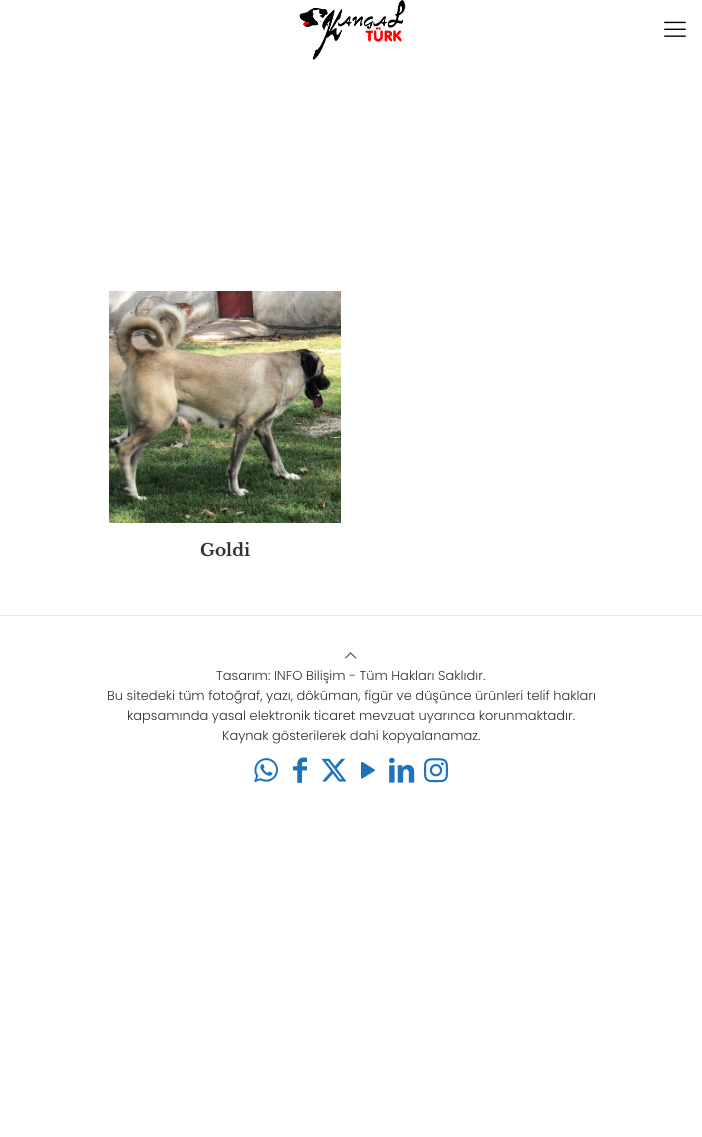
<svg xmlns="http://www.w3.org/2000/svg" width="702" height="1137" viewBox="0 0 702 1137">
  <rect width="100%" height="100%" fill="#fff"/>
  <image x="299" y="0" width="107" height="60" href="img/1.png"/>
  <image x="664" y="21" width="22" height="16" href="img/2.png"/>
  <image x="109" y="291" width="232" height="232" href="img/3.png"/>
  <path d="M0 615h702v1H0z" fill="#e6e6e6"/>
  <image x="345" y="652" width="12" height="7" href="img/4.png"/>
  <image x="254" y="758" width="24" height="25" href="img/5.png"/>
  <image x="293" y="757" width="14" height="26" href="img/6.png"/>
  <image x="321" y="758" width="26" height="24" href="img/7.png"/>
  <image x="361" y="761" width="14" height="18" href="img/8.png"/>
  <image x="389" y="757" width="26" height="26" href="img/9.png"/>
  <image x="424" y="758" width="24" height="25" href="img/10.png"/>
  <text x="200" y="556" font-family="Libre Baskerville" font-size="17" font-weight="bold" fill="#303135">Goldi</text>
  <g font-family="Poppins" font-size="13" font-weight="300" fill="#303135">
    <text x="216" y="680">Tasarım: INFO Bilişim - Tüm Hakları Saklıdır.</text>
    <text x="107" y="700">Bu sitedeki tüm fotoğraf, yazı, döküman, figür ve düşünce ürünleri telif hakları</text>
    <text x="127" y="720">kapsamında yasal elektronik ticaret mevzuat uyarınca korunmaktadır.</text>
    <text x="222" y="740">Kaynak gösterilerek dahi kopyalanamaz.</text>
  </g>
</svg>
